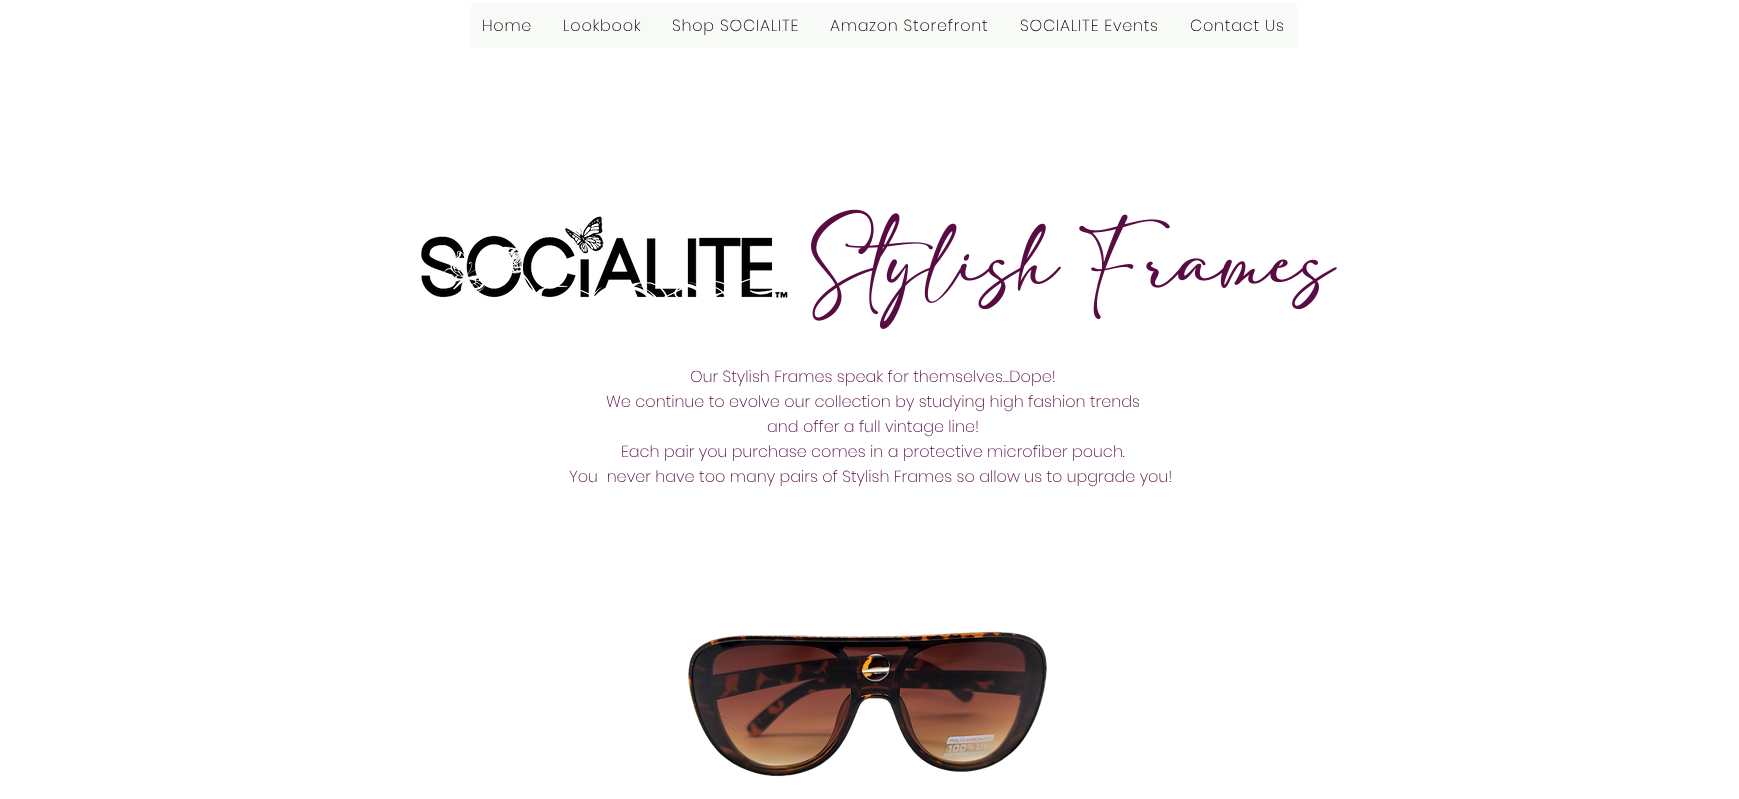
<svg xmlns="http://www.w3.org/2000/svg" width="1739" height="799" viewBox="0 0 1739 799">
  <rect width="100%" height="100%" fill="#fff"/>
  <path d="M471 3h826v45H471z" fill="#f8faf7"/>
  <image x="421" y="216" width="367" height="82" href="img/1.png"/>
  <image x="811" y="209" width="526" height="120" href="img/2.png"/>
  <image x="688" y="631" width="359" height="146" href="img/3.png"/>
  <g font-family="Poppins" font-size="16" font-weight="200" letter-spacing="0.75" fill="#000">
    <text x="482" y="31">Home</text>
    <text x="563" y="31">Lookbook</text>
    <text x="672" y="31">Shop SOCIALITE</text>
    <text x="830" y="31">Amazon Storefront</text>
    <text x="1020" y="31">SOCIALITE Events</text>
    <text x="1190" y="31">Contact Us</text>
  </g>
  <g font-family="Poppins" font-size="16" font-weight="200" fill="#580c42">
    <text x="690" y="382">Our Stylish Frames speak for themselves...Dope!</text>
    <text x="606" y="407">We continue to evolve our collection by studying high fashion trends</text>
    <text x="767" y="432">and offer a full vintage line!</text>
    <text x="621" y="457">Each pair you purchase comes in a protective microfiber pouch.</text>
    <text x="569" y="482" xml:space="preserve">You  never have too many pairs of Stylish Frames so allow us to upgrade you!</text>
  </g>
</svg>
